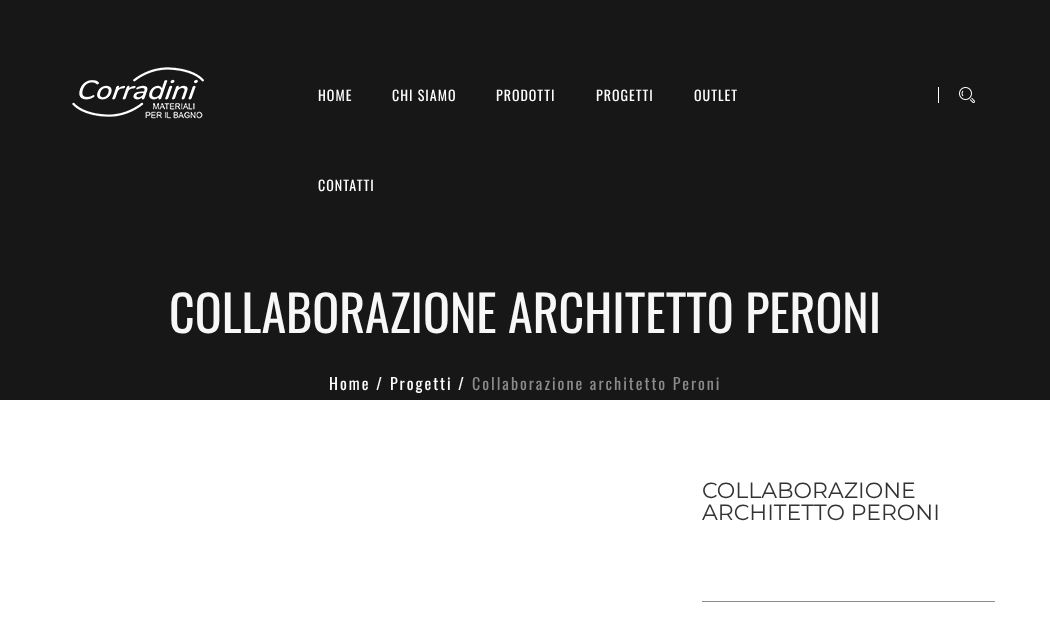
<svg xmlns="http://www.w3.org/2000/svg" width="1050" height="628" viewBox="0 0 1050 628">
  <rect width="100%" height="100%" fill="#fff"/>
  <path d="M0 0h1050v400H0z" fill="#171717"/>
  <image x="72" y="67" width="132" height="52" href="img/1.png"/>
  <path d="M938 87h1v16H938z" fill="#fff"/>
  <image x="959" y="87" width="16" height="16" href="img/2.png"/>
  <path d="M702 601h293v1H702z" fill="#8b8b8b"/>
  <g font-family="Oswald" font-size="14" letter-spacing="1" fill="#fff">
    <text x="318" y="101">HOME</text>
    <text x="392" y="101">CHI SIAMO</text>
    <text x="496" y="101">PRODOTTI</text>
    <text x="596" y="101">PROGETTI</text>
    <text x="694" y="101">OUTLET</text>
    <text x="318" y="191">CONTATTI</text>
  </g>
  <text x="169" y="333" font-family="Oswald" font-size="50" fill="#f7f7f7">COLLABORAZIONE ARCHITETTO PERONI</text>
  <text x="329" y="390" font-family="Oswald" font-size="16" letter-spacing="2" fill="#fff">Home</text>
  <text x="376" y="390" font-family="Oswald" font-size="16" letter-spacing="2" fill="#f7f7f7">/</text>
  <text x="390" y="390" font-family="Oswald" font-size="16" letter-spacing="2" fill="#fff">Progetti</text>
  <text x="458" y="390" font-family="Oswald" font-size="16" letter-spacing="2" fill="#f7f7f7">/</text>
  <text x="472" y="390" font-family="Oswald" font-size="16" letter-spacing="2" fill="#8b8b8b">Collaborazione architetto Peroni</text>
  <g font-family="Montserrat" font-size="22" fill="#333">
    <text x="702" y="498">COLLABORAZIONE</text>
    <text x="702" y="520">ARCHITETTO PERONI</text>
  </g>
</svg>
